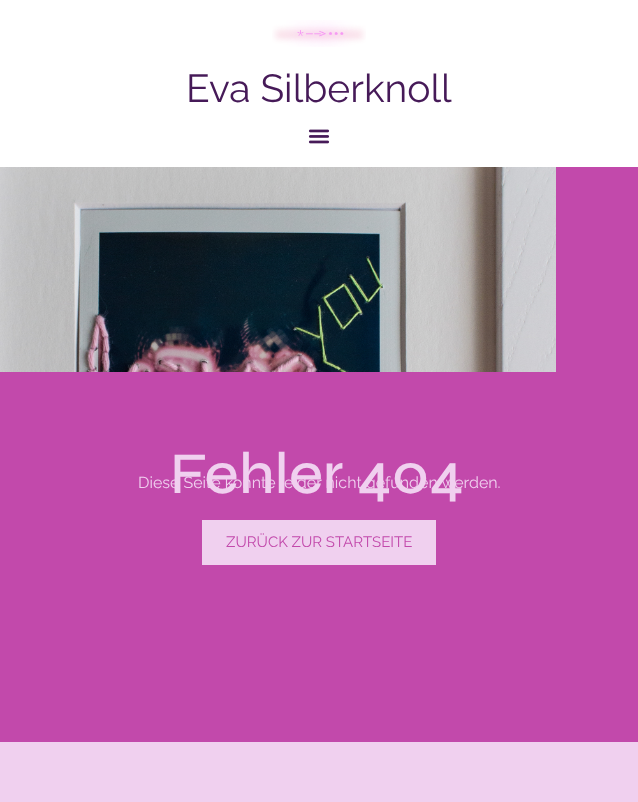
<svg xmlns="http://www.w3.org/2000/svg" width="638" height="802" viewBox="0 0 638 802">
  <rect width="100%" height="100%" fill="#fff"/>
  <image x="272" y="20" width="94" height="27" href="img/1.png"/>
  <image x="308" y="129" width="22" height="15" href="img/2.png"/>
  <path d="M0 167h638v575H0z" fill="#c249ab"/>
  <image x="0" y="167" width="556" height="205" href="img/3.png"/>
  <path d="M202 520h234v45H202z" fill="#f0d0ef"/>
  <path d="M0 742h638v60H0z" fill="#f0d0ef"/>
  <text x="186" y="102" font-family="Raleway" font-size="39" fill="#461a58">Eva Silberknoll</text>
  <text x="170" y="493" font-family="Syne" font-size="59" font-weight="500" fill="#f0d0ef">Fehler 404</text>
  <text x="138" y="488" font-family="Raleway" font-size="16" fill="#f0d0ef">Diese Seite konnte leider nicht gefunden werden.</text>
  <text x="226" y="547" font-family="Raleway" font-size="15" fill="#c249ab">ZURÜCK ZUR STARTSEITE</text>
</svg>
